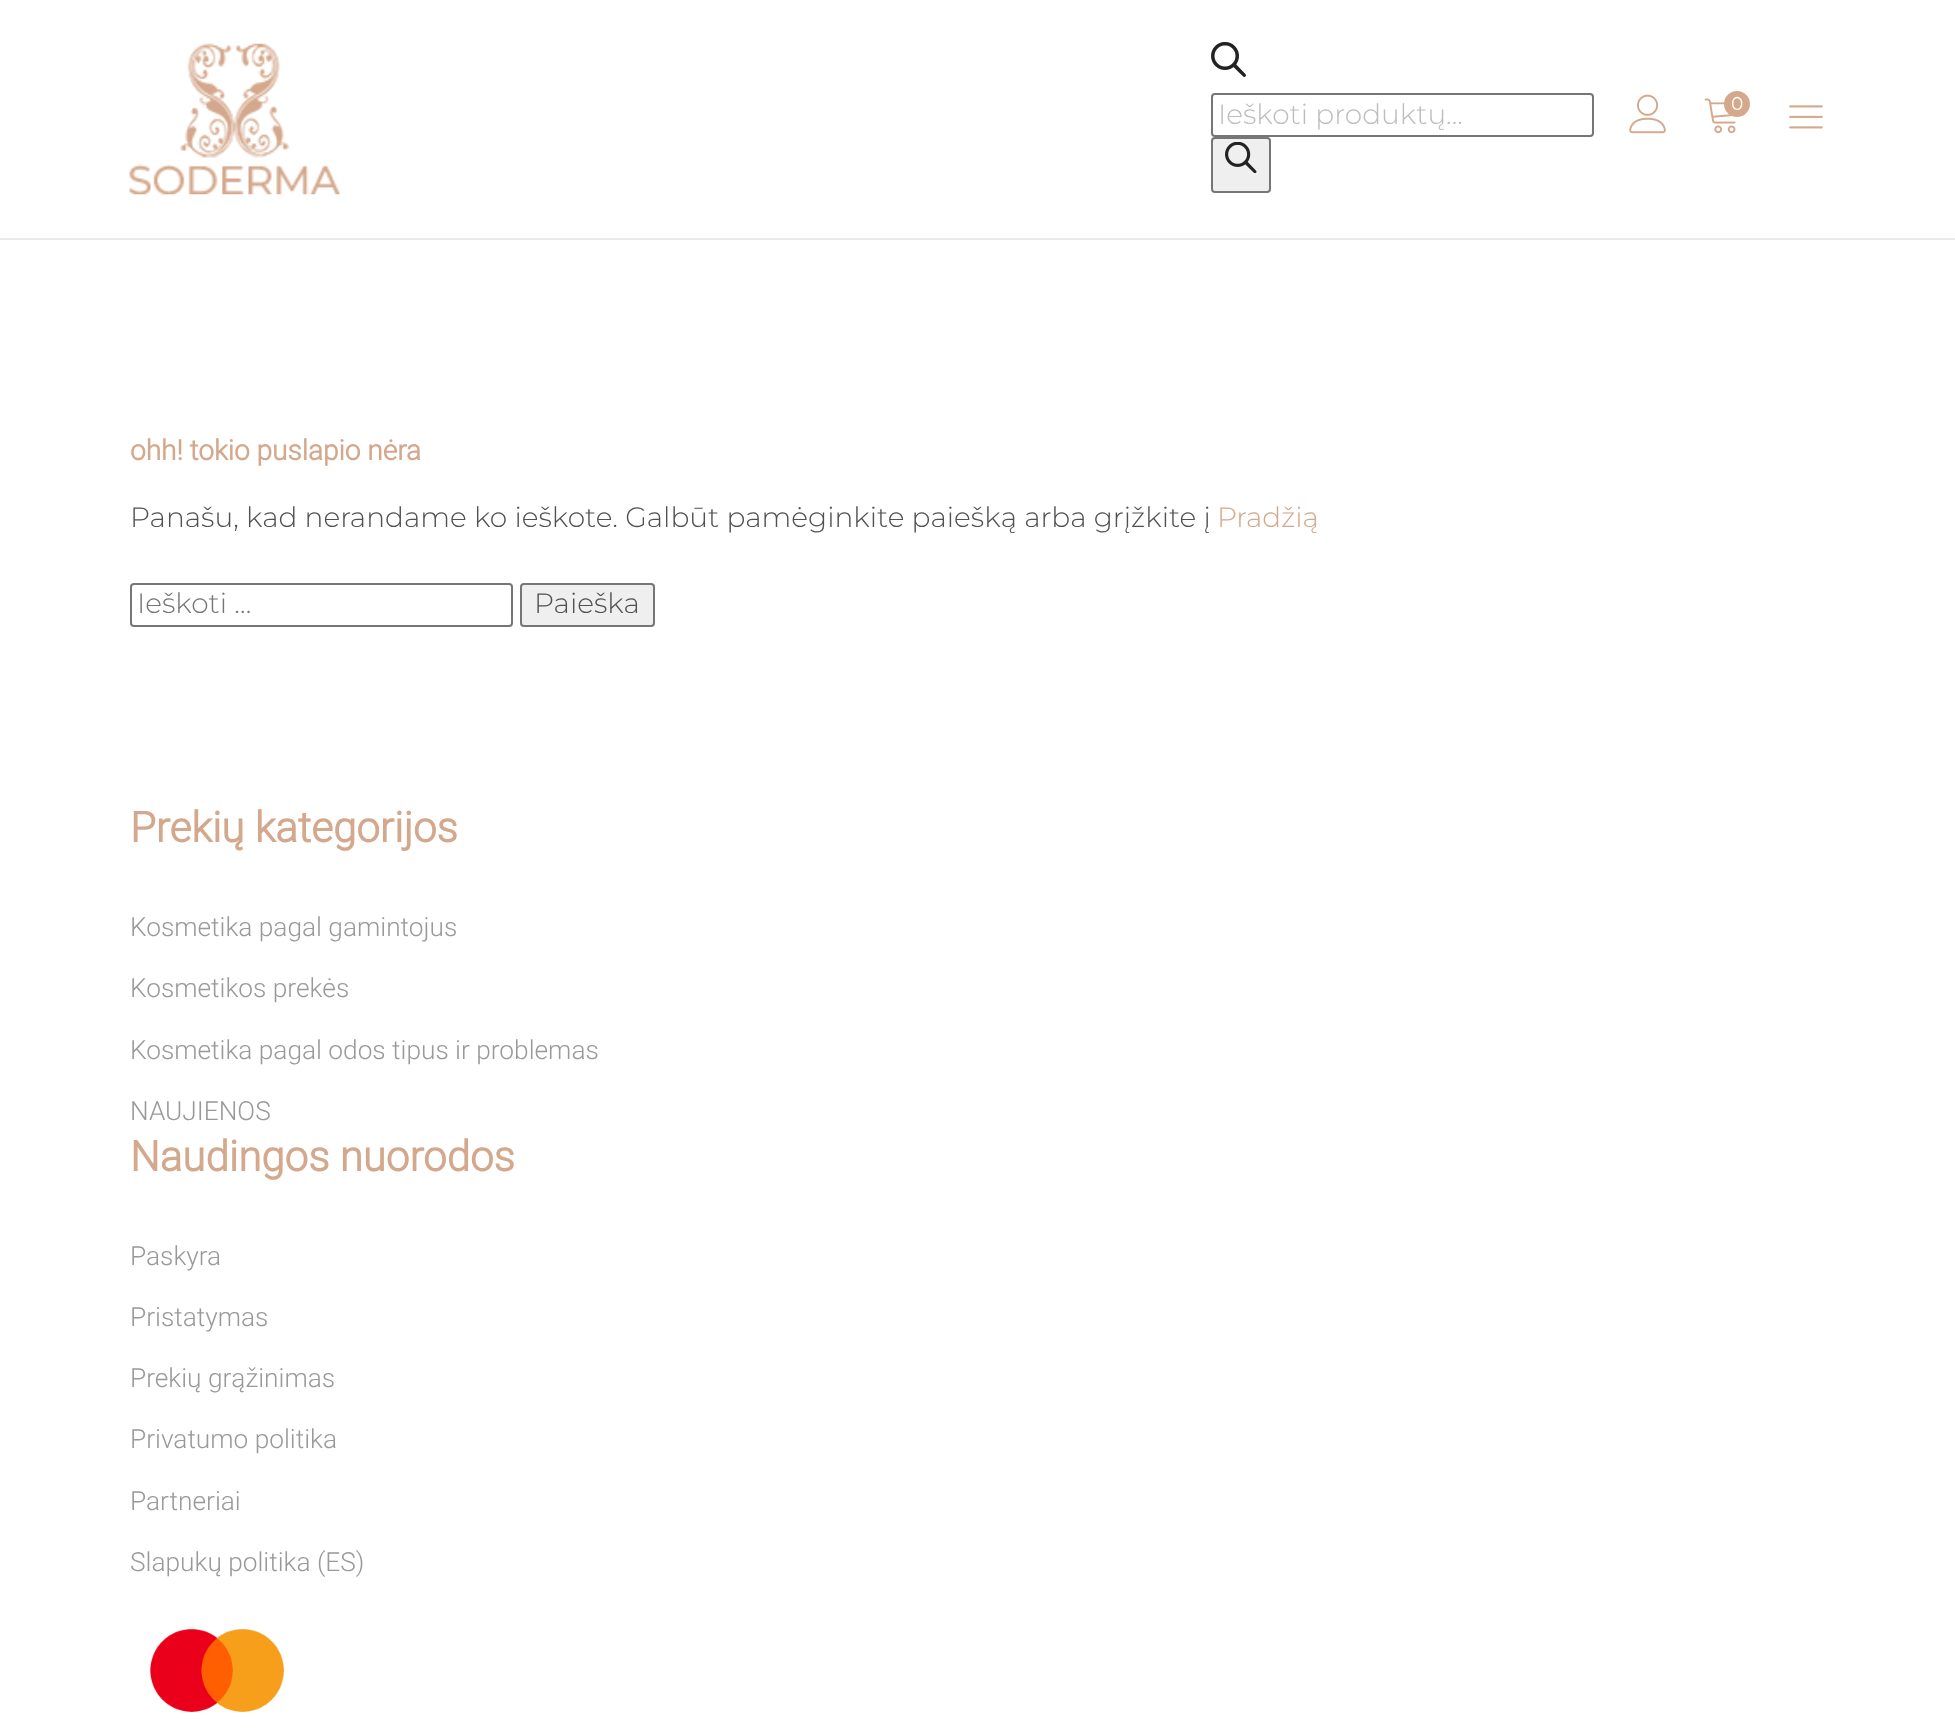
<svg xmlns="http://www.w3.org/2000/svg" width="1955" height="1728" viewBox="0 0 1955 1728">
  <rect width="100%" height="100%" fill="#fff"/>
  <path d="M0 238h1955v2H0z" fill="#eaeaea"/>
  <image x="129" y="43" width="211" height="152" href="img/1.png"/>
  <image x="1211" y="42" width="35" height="35" href="img/2.png"/>
  <rect x="1212" y="94" width="381" height="42" rx="3" fill="none" stroke="#767676" stroke-width="2"/>
  <rect x="1212" y="138" width="58" height="54" rx="3" fill="#efefef" stroke="#767676" stroke-width="2"/>
  <image x="1225" y="142" width="32" height="31" href="img/3.png"/>
  <image x="1629" y="94" width="37" height="40" href="img/4.png"/>
  <image x="1704" y="98" width="32" height="36" href="img/5.png"/>
  <circle cx="1737" cy="104" r="13" fill="#d4a88c"/>
  <image x="1789" y="105" width="34" height="24" href="img/6.png"/>
  <rect x="131" y="584" width="381" height="42" rx="3" fill="none" stroke="#767676" stroke-width="2"/>
  <rect x="521" y="584" width="133" height="42" rx="3" fill="#efefef" stroke="#767676" stroke-width="2"/>
  <image x="150" y="1629" width="134" height="83" href="img/7.png"/>
  <text x="1218" y="124" font-family="Montserrat" font-size="28" font-weight="100" fill="#bdbdbd">Ieškoti produktų...</text>
  <text x="1731" y="110" font-family="Montserrat" font-size="18" font-weight="bold" fill="#fff">0</text>
  <text x="130" y="460" font-family="Roboto" font-size="28" font-weight="bold" fill="#d4a88c">ohh! tokio puslapio nėra</text>
  <text x="130" y="527" font-family="Montserrat" font-size="28" font-weight="100" fill="#515151">Panašu, kad nerandame ko ieškote. Galbūt pamėginkite paiešką arba grįžkite į</text>
  <text x="1217" y="527" font-family="Montserrat" font-size="28" font-weight="100" fill="#d4a88c">Pradžią</text>
  <text x="137" y="613" font-family="Montserrat" font-size="28" font-weight="100" fill="#757575">Ieškoti …</text>
  <text x="534" y="613" font-family="Montserrat" font-size="28" font-weight="100" fill="#515151">Paieška</text>
  <text x="130" y="842" font-family="Roboto" font-size="42" font-weight="bold" fill="#d4a88c">Prekių kategorijos</text>
  <g font-family="Roboto" font-size="26.25" font-weight="300" fill="#999">
    <text x="130" y="936">Kosmetika pagal gamintojus</text>
    <text x="130" y="997">Kosmetikos prekės</text>
    <text x="130" y="1059">Kosmetika pagal odos tipus ir problemas</text>
    <text x="130" y="1120">NAUJIENOS</text>
  </g>
  <text x="130" y="1171" font-family="Roboto" font-size="42" font-weight="bold" fill="#d4a88c">Naudingos nuorodos</text>
  <g font-family="Roboto" font-size="26.25" font-weight="300" fill="#999">
    <text x="130" y="1265">Paskyra</text>
    <text x="130" y="1326">Pristatymas</text>
    <text x="130" y="1387">Prekių grąžinimas</text>
    <text x="130" y="1448">Privatumo politika</text>
    <text x="130" y="1510">Partneriai</text>
    <text x="130" y="1571">Slapukų politika (ES)</text>
  </g>
</svg>
